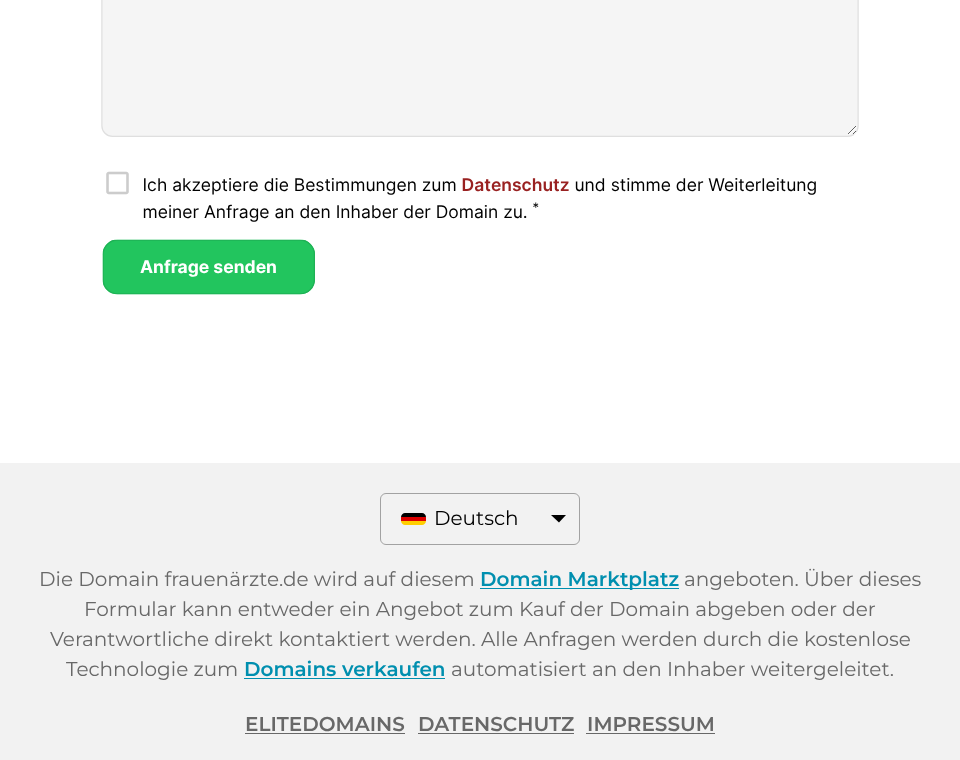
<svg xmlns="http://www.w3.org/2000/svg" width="960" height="760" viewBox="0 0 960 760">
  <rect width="100%" height="100%" fill="#f2f2f2"/>
  <path d="M0 0h960v463H0z" fill="#fff"/>
  <image x="101" y="0" width="758" height="295" href="img/1.png"/>
  <rect x="380.5" y="493.5" width="199" height="51" rx="5.5" fill="none" stroke="#a2a2a2"/>
  <path d="M405 513H422C424 513 426 515 426 517H401C401 515 403 513 405 513Z" fill="#000"/>
  <path d="M401 517h25v4H401z" fill="#d00"/>
  <path d="M401 521H426C426 523 424 525 422 525H405C403 525 401 523 401 521Z" fill="#ffce00"/>
  <path d="M551 515H566L559 522.5Z" fill="#000"/>
  <path d="M480 588h199v1H480z" fill="#008faf"/>
  <path d="M244 678h201v1H244z" fill="#008faf"/>
  <path d="M245 733h160v1H245z" fill="#686868"/>
  <path d="M418 733h156v1H418z" fill="#686868"/>
  <path d="M586 733h129v1H586z" fill="#686868"/>
  <text x="434" y="525" font-family="Montserrat" font-size="20" fill="#000">Deutsch</text>
  <text x="39" y="586" font-family="Montserrat" font-size="20" fill="#686868">Die Domain frauenärzte.de wird auf diesem</text>
  <text x="480" y="586" font-family="Montserrat" font-size="20" font-weight="600" fill="#008faf">Domain Marktplatz</text>
  <g font-family="Montserrat" font-size="20" fill="#686868">
    <text x="684" y="586">angeboten. Über dieses</text>
    <text x="84" y="616">Formular kann entweder ein Angebot zum Kauf der Domain abgeben oder der</text>
    <text x="50" y="646">Verantwortliche direkt kontaktiert werden. Alle Anfragen werden durch die kostenlose</text>
    <text x="66" y="676">Technologie zum</text>
  </g>
  <text x="244" y="676" font-family="Montserrat" font-size="20" font-weight="600" fill="#008faf">Domains verkaufen</text>
  <text x="451" y="676" font-family="Montserrat" font-size="20" fill="#686868">automatisiert an den Inhaber weitergeleitet.</text>
  <g font-family="Montserrat" font-size="20" font-weight="600" fill="#686868">
    <text x="245" y="731">ELITEDOMAINS</text>
    <text x="418" y="731">DATENSCHUTZ</text>
    <text x="587" y="731">IMPRESSUM</text>
  </g>
</svg>
